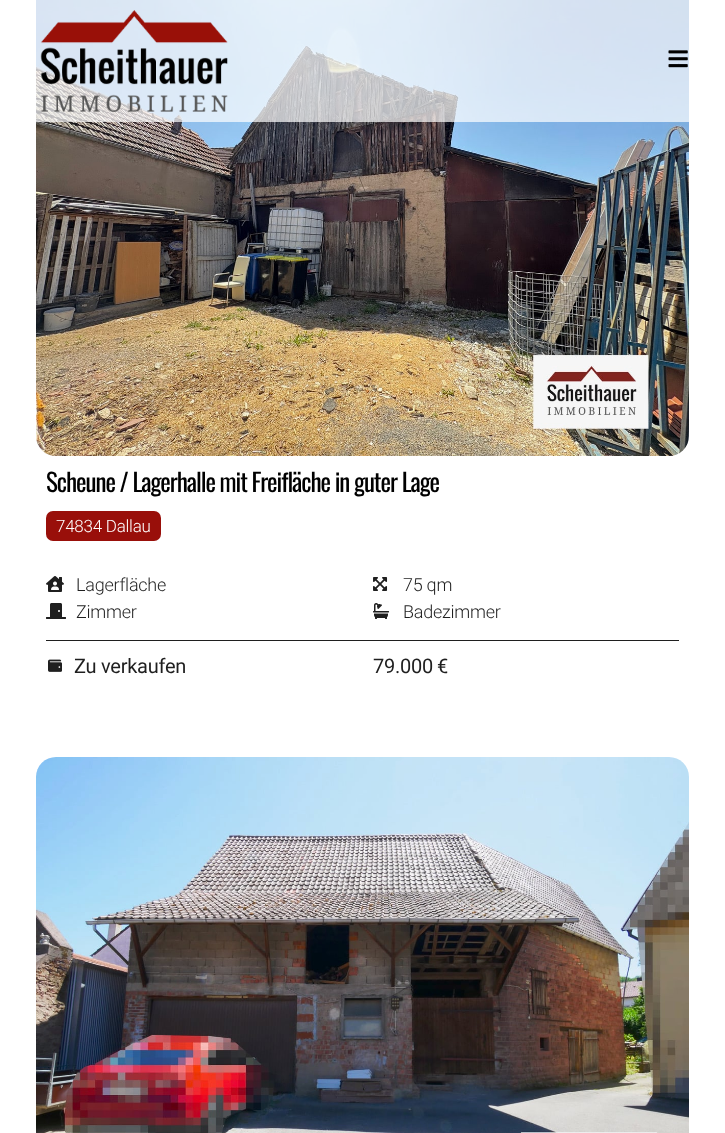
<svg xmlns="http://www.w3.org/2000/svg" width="725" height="1133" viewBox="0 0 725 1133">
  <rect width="100%" height="100%" fill="#fff"/>
  <image x="36" y="0" width="653" height="456" href="img/3.png"/>
  <path d="M36 0h653v122H36z" fill="#ffffffb3"/>
  <image x="40" y="10" width="188" height="102" href="img/1.png"/>
  <image x="668" y="50" width="20" height="18" href="img/2.png"/>
  <rect x="46" y="511" width="115" height="30" rx="7" fill="#990f0a"/>
  <image x="46" y="576" width="18" height="16" href="img/4.png"/>
  <image x="46" y="603" width="20" height="16" href="img/5.png"/>
  <image x="373" y="577" width="15" height="14" href="img/6.png"/>
  <image x="373" y="603" width="16" height="16" href="img/7.png"/>
  <path d="M46 640h633v1H46z" fill="#1f1f1f"/>
  <image x="48" y="659" width="14" height="13" href="img/8.png"/>
  <image x="36" y="757" width="653" height="376" href="img/9.png"/>
  <text x="46" y="492" font-family="Oswald" font-size="25" letter-spacing="-1.05" fill="#000">Scheune / Lagerhalle mit Freifläche in guter Lage</text>
  <text x="56" y="532" font-family="Roboto" font-size="17" font-weight="300" letter-spacing="-0.25" fill="#fff">74834 Dallau</text>
  <g font-family="Roboto" font-size="18" font-weight="300" letter-spacing="-0.25" fill="#1f1f1f">
    <text x="76" y="591">Lagerfläche</text>
    <text x="76" y="618">Zimmer</text>
    <text x="403" y="591">75 qm</text>
    <text x="403" y="618">Badezimmer</text>
  </g>
  <g font-family="Roboto" font-size="20" letter-spacing="-0.25" fill="#1f1f1f">
    <text x="74" y="673">Zu verkaufen</text>
    <text x="373" y="673">79.000</text>
    <text x="437" y="673">€</text>
  </g>
</svg>
